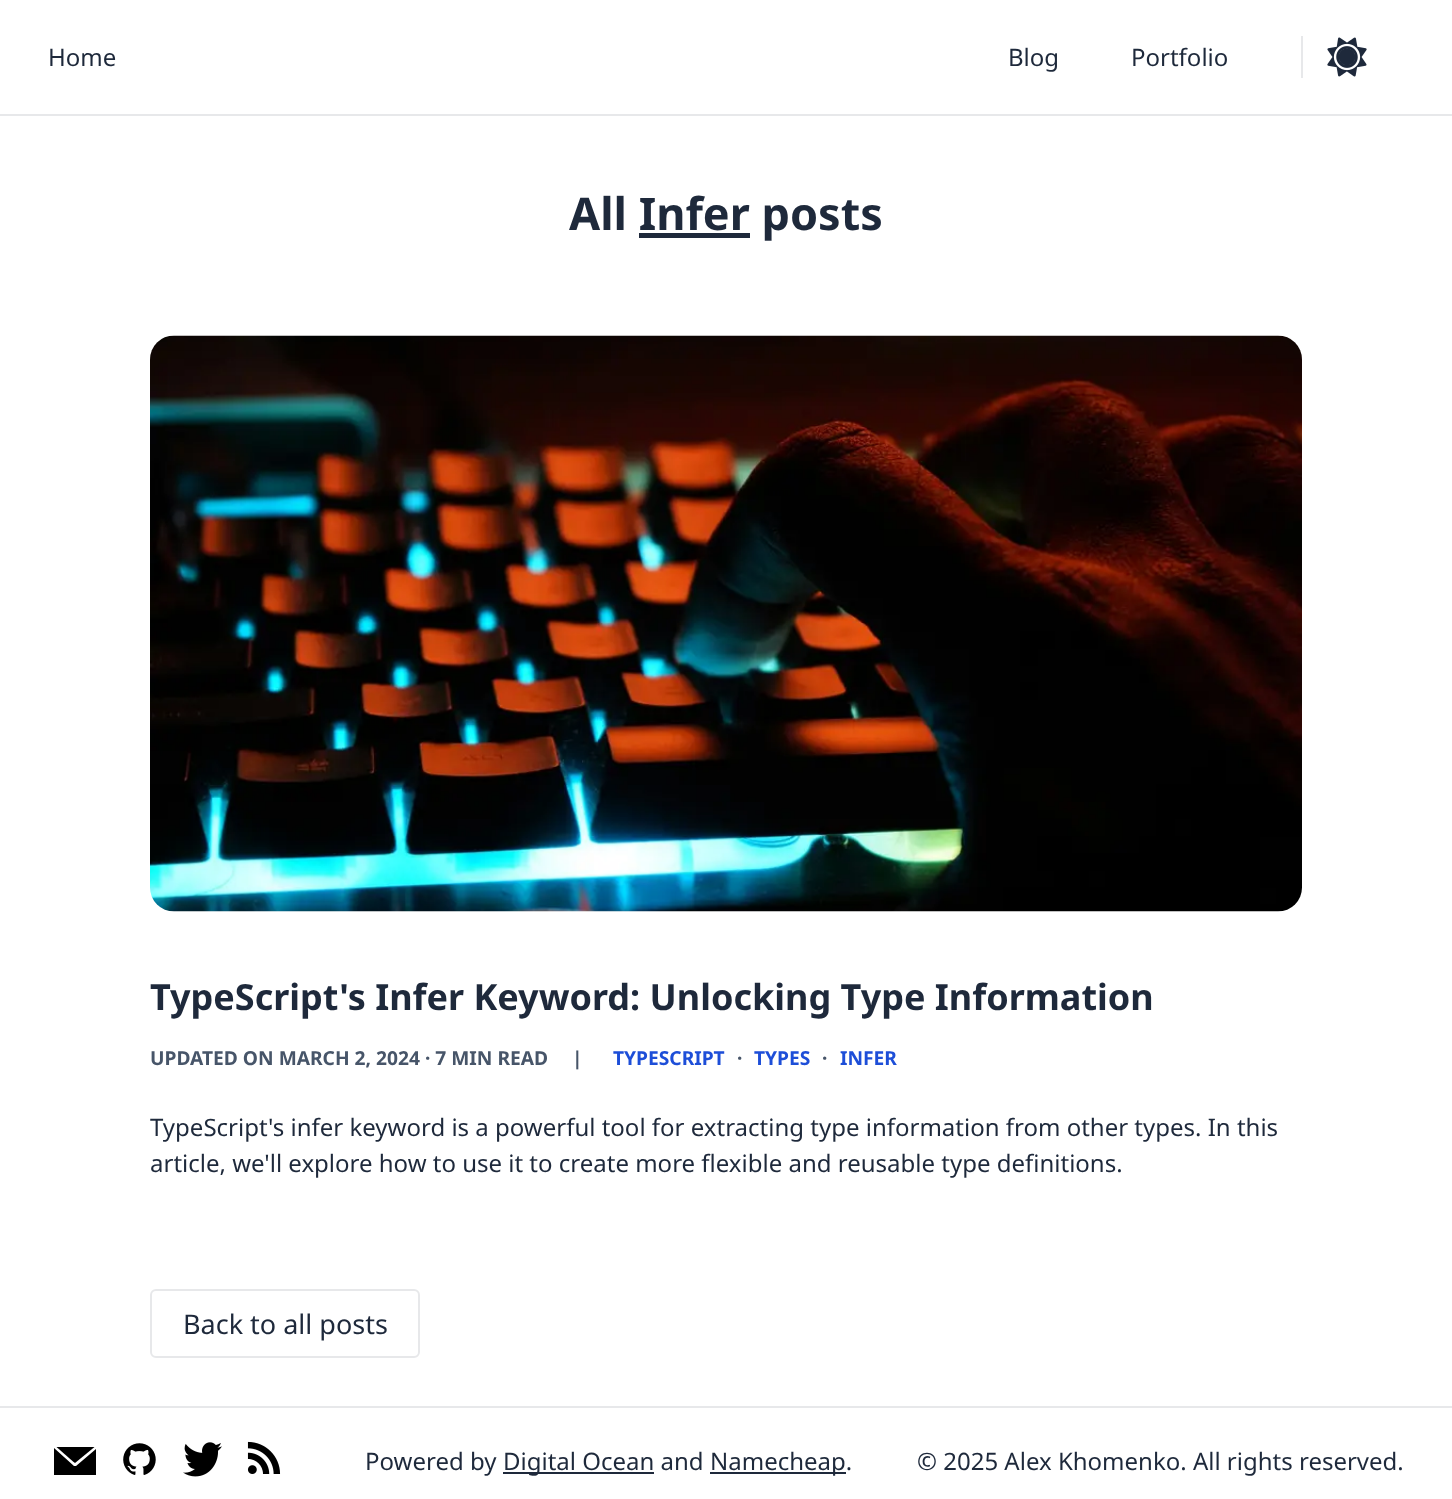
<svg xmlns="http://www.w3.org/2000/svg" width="1452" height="1499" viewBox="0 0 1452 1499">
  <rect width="100%" height="100%" fill="#fff"/>
  <path d="M0 114h1452v2H0z" fill="#e7e8ea"/>
  <path d="M1301 36h2v42H1301z" fill="#e7e8ea"/>
  <image x="1327" y="37" width="40" height="40" href="img/1.png"/>
  <path d="M639 233h111v5H639z" fill="#1e293b"/>
  <image x="150" y="335" width="1152" height="577" href="img/2.png"/>
  <rect x="151" y="1290" width="268" height="67" rx="5" fill="none" stroke="#e7e8ea" stroke-width="2"/>
  <path d="M0 1406h1452v2H0z" fill="#e7e8ea"/>
  <path d="M76 1466H74L54 1448V1475H96V1449Z" fill="#000"/>
  <path d="M73 1461.5L75 1463L94.5 1447H56.5Z" fill="#000"/>
  <image x="123" y="1443" width="33" height="32" href="img/3.png"/>
  <image x="183" y="1442" width="39" height="35" href="img/4.png"/>
  <image x="247" y="1441" width="34" height="33" href="img/5.png"/>
  <path d="M503 1472h151v2H503z" fill="#1e293b"/>
  <path d="M710 1472h136v2H710z" fill="#1e293b"/>
  <g font-family="Noto Sans" font-size="24" fill="#1e293b">
    <text x="48" y="66">Home</text>
    <text x="1008" y="66">Blog</text>
    <text x="1131" y="66">Portfolio</text>
  </g>
  <text x="569" y="230" font-family="Noto Sans" font-size="45" font-weight="bold" fill="#1e293b">All Infer posts</text>
  <text x="150" y="1010" font-family="Noto Sans" font-size="36" font-weight="bold" fill="#1e293b">TypeScript's Infer Keyword: Unlocking Type Information</text>
  <g font-family="Noto Sans" font-size="19.2" font-weight="bold" fill="#475569">
    <text x="150" y="1065">UPDATED ON MARCH 2, 2024 · 7 MIN READ</text>
    <text x="572" y="1065">|</text>
  </g>
  <text x="613" y="1065" font-family="Noto Sans" font-size="19.2" font-weight="bold" fill="#1d4ed8">TYPESCRIPT</text>
  <text x="737" y="1065" font-family="Noto Sans" font-size="19.2" font-weight="bold" fill="#475569">·</text>
  <text x="754" y="1065" font-family="Noto Sans" font-size="19.2" font-weight="bold" fill="#1d4ed8">TYPES</text>
  <text x="822" y="1065" font-family="Noto Sans" font-size="19.2" font-weight="bold" fill="#475569">·</text>
  <text x="840" y="1065" font-family="Noto Sans" font-size="19.2" font-weight="bold" fill="#1d4ed8">INFER</text>
  <g font-family="Noto Sans" font-size="24" fill="#1e293b">
    <text x="150" y="1136">TypeScript's infer keyword is a powerful tool for extracting type information from other types. In this</text>
    <text x="150" y="1172">article, we'll explore how to use it to create more flexible and reusable type definitions.</text>
  </g>
  <text x="183" y="1334" font-family="Noto Sans" font-size="27" fill="#1e293b">Back to all posts</text>
  <g font-family="Noto Sans" font-size="24" fill="#1e293b">
    <text x="365" y="1470">Powered by</text>
    <text x="503" y="1470">Digital Ocean and</text>
    <text x="710" y="1470">Namecheap.</text>
    <text x="917" y="1470">© 2025 Alex Khomenko. All rights reserved.</text>
  </g>
</svg>
